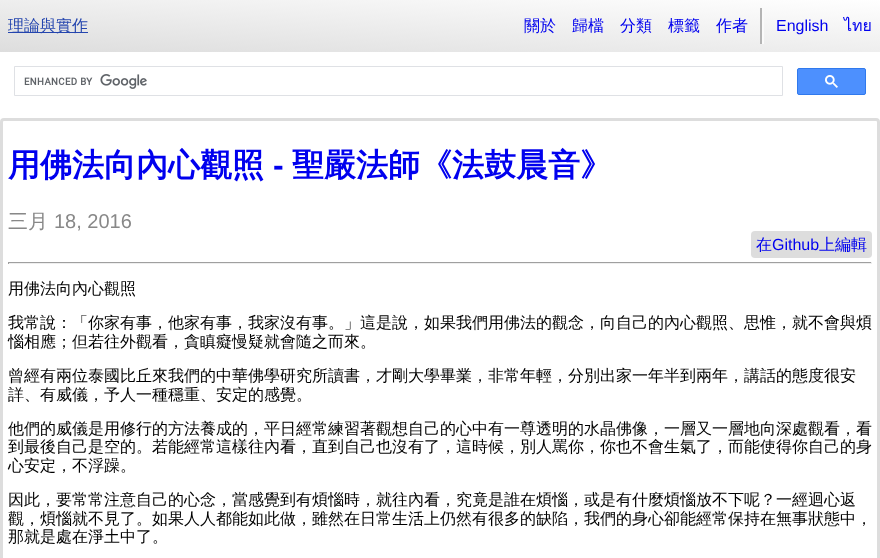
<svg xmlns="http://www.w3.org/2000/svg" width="880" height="558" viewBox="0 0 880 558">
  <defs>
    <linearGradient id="g1" gradientUnits="userSpaceOnUse" x1="443" y1="-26" x2="437" y2="78"><stop offset="0" stop-color="#fff"/><stop offset="1" stop-color="#ddd"/></linearGradient>
  </defs>
  <rect width="100%" height="100%" fill="#fff"/>
  <path d="M0 0h880v52H0z" fill="url(#g1)"/>
  <path d="M8 32h80v1H8z" fill="#2445ae"/>
  <path d="M762 8h2v36H762z" fill="#fafafa"/>
  <path d="M760 8h2v36H760z" fill="#b4b4b4"/>
  <path d="M14.5 66.5h768v29H14.5z" fill="none" stroke="#dfe1e5"/>
  <image x="24" y="74" width="123" height="15" href="img/1.png"/>
  <rect x="797.5" y="68.5" width="68" height="26" rx="1.5" fill="#4d90fe" stroke="#3079ed"/>
  <image x="825" y="75" width="13" height="13" href="img/2.png"/>
  <rect x="1.5" y="119.5" width="877" height="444" rx="2.5" fill="none" stroke="#ddd" stroke-width="3"/>
  <rect x="751" y="231" width="121" height="27" rx="4" fill="#ddd"/>
  <path d="M8 262h864v1H8z" fill="#9f9f9f"/>
  <path d="M871 262h1v2H871z" fill="#eee"/>
  <path d="M8 263h864v1H8z" fill="#eee"/>
  <path d="M8 262h1v2H8z" fill="#9f9f9f"/>
  <text x="8" y="31" font-family="WenQuanYi Zen Hei" font-size="16" font-weight="500" fill="#2445ae">理論與實作</text>
  <g font-family="WenQuanYi Zen Hei" font-size="16" font-weight="500" fill="#00e">
    <text x="524" y="31">關於</text>
    <text x="572" y="31">歸檔</text>
    <text x="620" y="31">分類</text>
    <text x="668" y="31">標籤</text>
    <text x="716" y="31">作者</text>
  </g>
  <text x="776" y="31" font-family="Liberation Sans" font-size="16" fill="#00e">English</text>
  <text x="844" y="31" font-family="Loma" font-size="16" fill="#00e">ไทย</text>
  <text x="8" y="176" font-family="WenQuanYi Zen Hei" font-size="32" font-weight="bold" fill="#00e">用佛法向內心觀照</text>
  <text x="273" y="176" font-family="Liberation Sans" font-size="32" font-weight="bold" fill="#00e">-</text>
  <text x="292" y="176" font-family="WenQuanYi Zen Hei" font-size="32" font-weight="bold" fill="#00e">聖嚴法師《法鼓晨音》</text>
  <text x="8" y="228" font-family="WenQuanYi Zen Hei" font-size="20" font-weight="500" fill="#888">三月</text>
  <text x="54" y="228" font-family="Liberation Sans" font-size="20" fill="#888">18, 2016</text>
  <text x="756" y="250" font-family="WenQuanYi Zen Hei" font-size="16" font-weight="500" fill="#00e">在</text>
  <text x="772" y="250" font-family="Liberation Sans" font-size="16" fill="#00e">Github</text>
  <text x="819" y="250" font-family="WenQuanYi Zen Hei" font-size="16" font-weight="500" fill="#00e">上編輯</text>
  <g font-family="WenQuanYi Zen Hei" font-size="16" font-weight="500" fill="#000">
    <text x="8" y="294">用佛法向內心觀照</text>
    <text x="8" y="328">我常說：「你家有事，他家有事，我家沒有事。」這是說，如果我們用佛法的觀念，向自己的內心觀照、思惟，就不會與煩</text>
    <text x="8" y="347">惱相應；但若往外觀看，貪瞋癡慢疑就會隨之而來。</text>
    <text x="8" y="381">曾經有兩位泰國比丘來我們的中華佛學研究所讀書，才剛大學畢業，非常年輕，分別出家一年半到兩年，講話的態度很安</text>
    <text x="8" y="400">詳、有威儀，予人一種穩重、安定的感覺。</text>
    <text x="8" y="434">他們的威儀是用修行的方法養成的，平日經常練習著觀想自己的心中有一尊透明的水晶佛像，一層又一層地向深處觀看，看</text>
    <text x="8" y="452">到最後自己是空的。若能經常這樣往內看，直到自己也沒有了，這時候，別人罵你，你也不會生氣了，而能使得你自己的身</text>
    <text x="8" y="471">心安定，不浮躁。</text>
    <text x="8" y="505">因此，要常常注意自己的心念，當感覺到有煩惱時，就往內看，究竟是誰在煩惱，或是有什麼煩惱放不下呢？一經迴心返</text>
    <text x="8" y="524">觀，煩惱就不見了。如果人人都能如此做，雖然在日常生活上仍然有很多的缺陷，我們的身心卻能經常保持在無事狀態中，</text>
    <text x="8" y="542">那就是處在淨土中了。</text>
  </g>
</svg>
